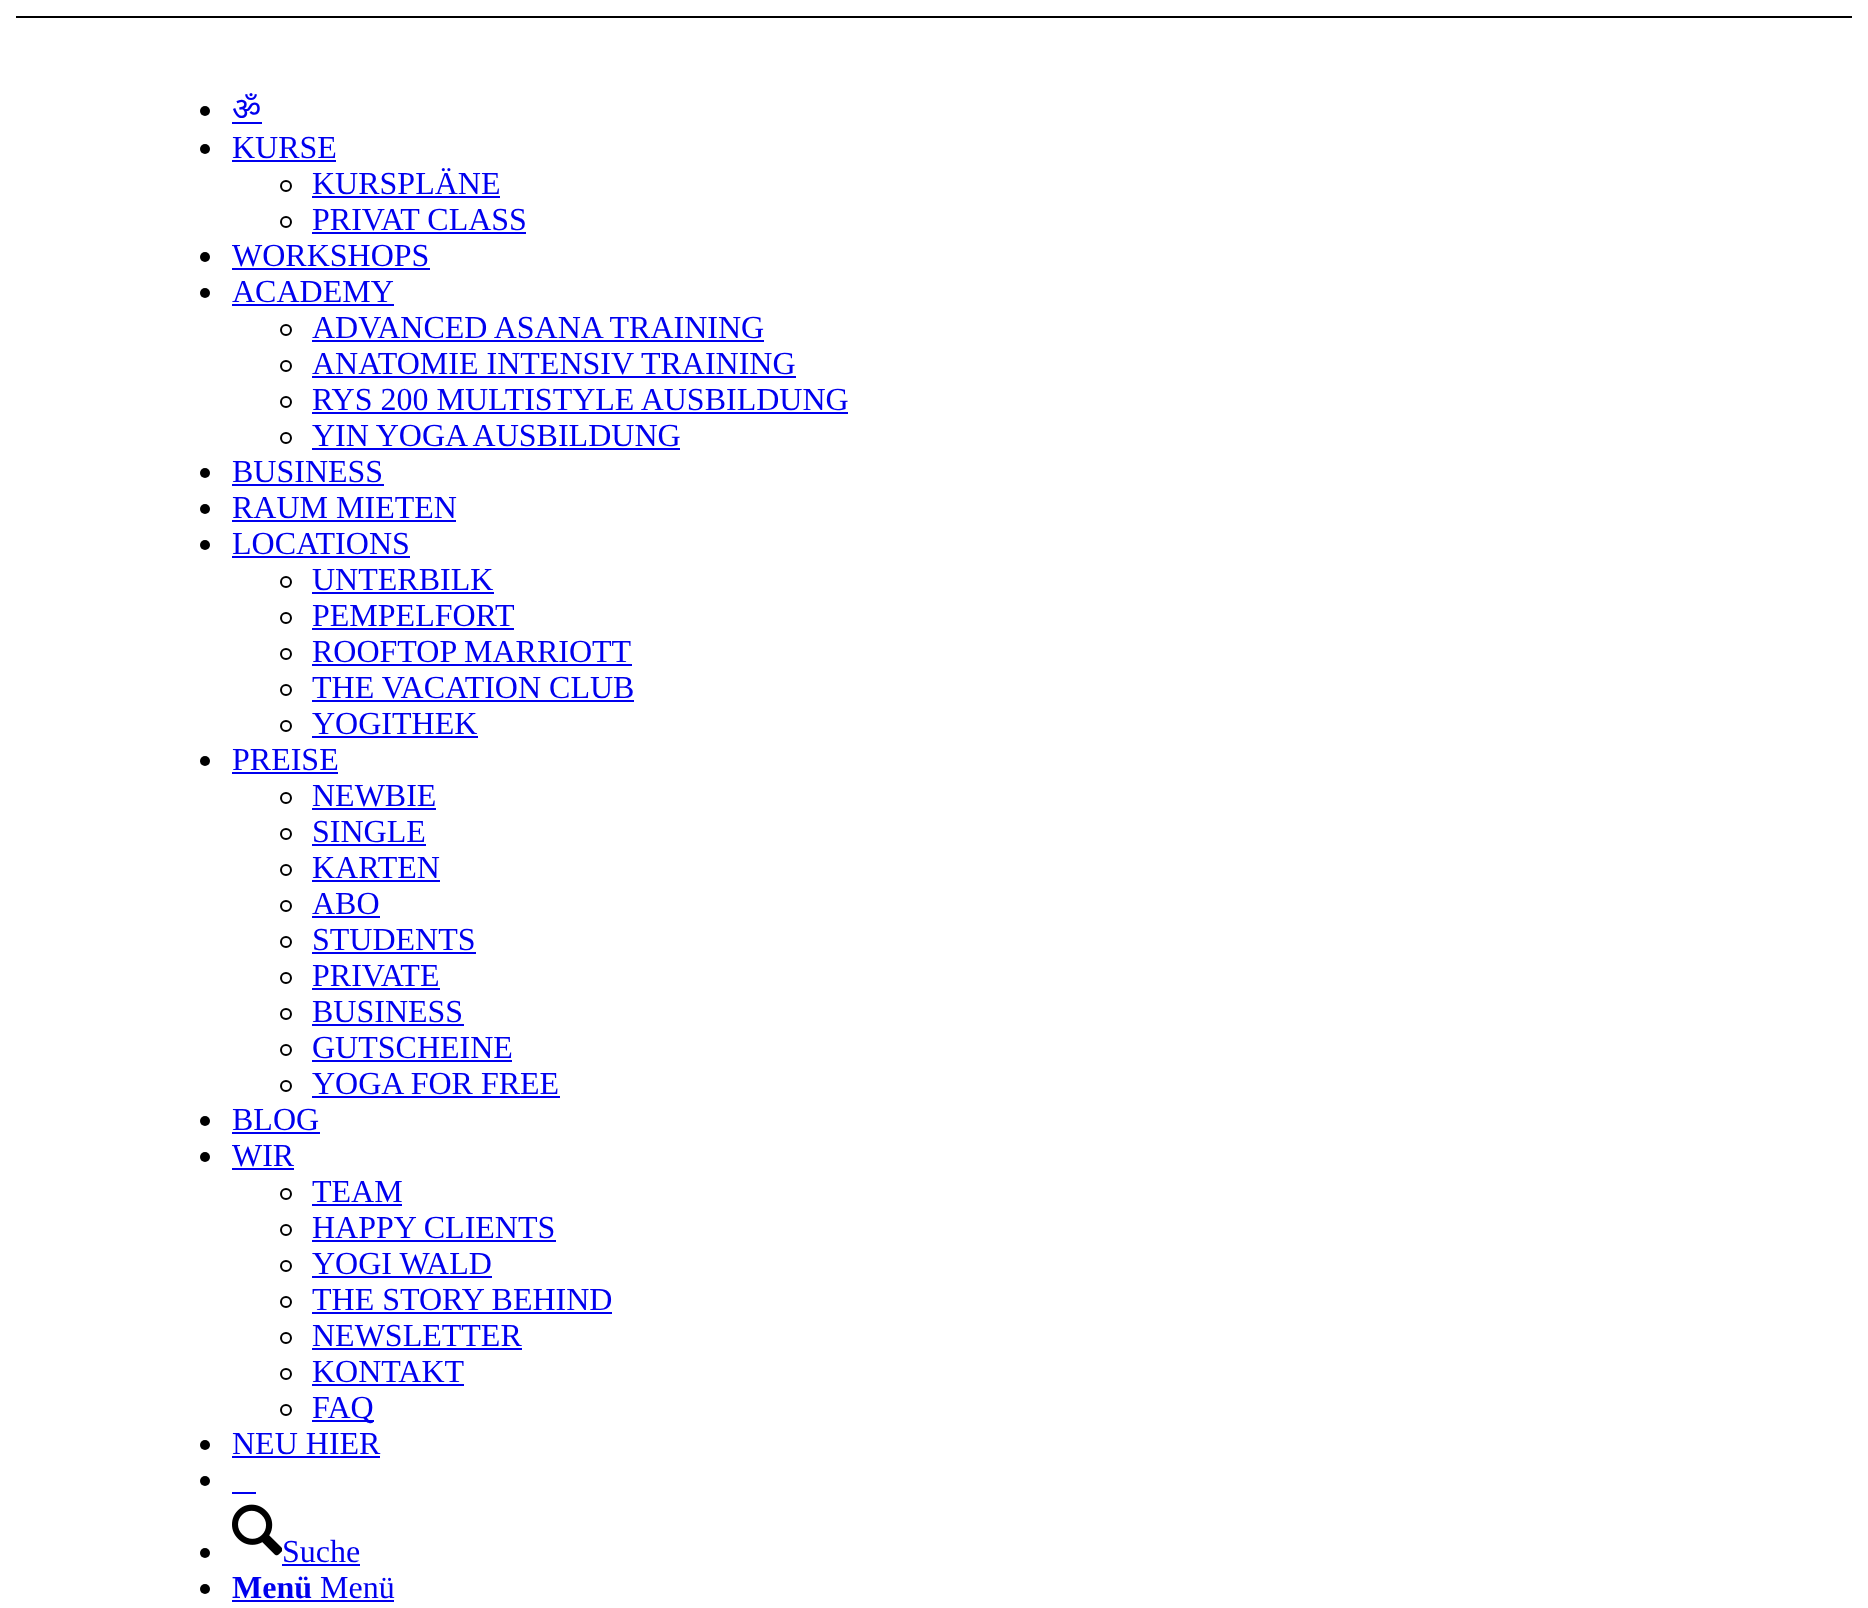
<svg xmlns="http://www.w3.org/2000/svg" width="1868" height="1608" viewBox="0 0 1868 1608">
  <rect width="100%" height="100%" fill="#fff"/>
  <path d="M16 16h1836v2H16z" fill="#000"/>
  <circle cx="205" cy="111" r="5" fill="#000"/>
  <path d="M232 122h30v2H232z" fill="#00e"/>
  <circle cx="205" cy="149" r="5" fill="#000"/>
  <path d="M232 160h104v2H232z" fill="#00e"/>
  <circle cx="286" cy="186" r="5" fill="none" stroke="#000" stroke-width="2"/>
  <path d="M312 196h188v2H312z" fill="#00e"/>
  <circle cx="286" cy="222" r="5" fill="none" stroke="#000" stroke-width="2"/>
  <path d="M312 232h214v2H312z" fill="#00e"/>
  <circle cx="205" cy="257" r="5" fill="#000"/>
  <path d="M232 268h198v2H232z" fill="#00e"/>
  <circle cx="205" cy="293" r="5" fill="#000"/>
  <path d="M232 304h162v2H232z" fill="#00e"/>
  <circle cx="286" cy="330" r="5" fill="none" stroke="#000" stroke-width="2"/>
  <path d="M312 340h452v2H312z" fill="#00e"/>
  <circle cx="286" cy="366" r="5" fill="none" stroke="#000" stroke-width="2"/>
  <path d="M312 376h484v2H312z" fill="#00e"/>
  <circle cx="286" cy="402" r="5" fill="none" stroke="#000" stroke-width="2"/>
  <path d="M312 412h536v2H312z" fill="#00e"/>
  <circle cx="286" cy="438" r="5" fill="none" stroke="#000" stroke-width="2"/>
  <path d="M312 448h368v2H312z" fill="#00e"/>
  <circle cx="205" cy="473" r="5" fill="#000"/>
  <path d="M232 484h152v2H232z" fill="#00e"/>
  <circle cx="205" cy="509" r="5" fill="#000"/>
  <path d="M232 520h224v2H232z" fill="#00e"/>
  <circle cx="205" cy="545" r="5" fill="#000"/>
  <path d="M232 556h178v2H232z" fill="#00e"/>
  <circle cx="286" cy="582" r="5" fill="none" stroke="#000" stroke-width="2"/>
  <path d="M312 592h182v2H312z" fill="#00e"/>
  <circle cx="286" cy="618" r="5" fill="none" stroke="#000" stroke-width="2"/>
  <path d="M312 628h202v2H312z" fill="#00e"/>
  <circle cx="286" cy="654" r="5" fill="none" stroke="#000" stroke-width="2"/>
  <path d="M312 664h320v2H312z" fill="#00e"/>
  <circle cx="286" cy="690" r="5" fill="none" stroke="#000" stroke-width="2"/>
  <path d="M312 700h322v2H312z" fill="#00e"/>
  <circle cx="286" cy="726" r="5" fill="none" stroke="#000" stroke-width="2"/>
  <path d="M312 736h166v2H312z" fill="#00e"/>
  <circle cx="205" cy="761" r="5" fill="#000"/>
  <path d="M232 772h106v2H232z" fill="#00e"/>
  <circle cx="286" cy="798" r="5" fill="none" stroke="#000" stroke-width="2"/>
  <path d="M312 808h124v2H312z" fill="#00e"/>
  <circle cx="286" cy="834" r="5" fill="none" stroke="#000" stroke-width="2"/>
  <path d="M312 844h114v2H312z" fill="#00e"/>
  <circle cx="286" cy="870" r="5" fill="none" stroke="#000" stroke-width="2"/>
  <path d="M312 880h128v2H312z" fill="#00e"/>
  <circle cx="286" cy="906" r="5" fill="none" stroke="#000" stroke-width="2"/>
  <path d="M312 916h68v2H312z" fill="#00e"/>
  <circle cx="286" cy="942" r="5" fill="none" stroke="#000" stroke-width="2"/>
  <path d="M312 952h164v2H312z" fill="#00e"/>
  <circle cx="286" cy="978" r="5" fill="none" stroke="#000" stroke-width="2"/>
  <path d="M312 988h128v2H312z" fill="#00e"/>
  <circle cx="286" cy="1014" r="5" fill="none" stroke="#000" stroke-width="2"/>
  <path d="M312 1024h152v2H312z" fill="#00e"/>
  <circle cx="286" cy="1050" r="5" fill="none" stroke="#000" stroke-width="2"/>
  <path d="M312 1060h200v2H312z" fill="#00e"/>
  <circle cx="286" cy="1086" r="5" fill="none" stroke="#000" stroke-width="2"/>
  <path d="M312 1096h248v2H312z" fill="#00e"/>
  <circle cx="205" cy="1121" r="5" fill="#000"/>
  <path d="M232 1132h88v2H232z" fill="#00e"/>
  <circle cx="205" cy="1157" r="5" fill="#000"/>
  <path d="M232 1168h62v2H232z" fill="#00e"/>
  <circle cx="286" cy="1194" r="5" fill="none" stroke="#000" stroke-width="2"/>
  <path d="M312 1204h90v2H312z" fill="#00e"/>
  <circle cx="286" cy="1230" r="5" fill="none" stroke="#000" stroke-width="2"/>
  <path d="M312 1240h244v2H312z" fill="#00e"/>
  <circle cx="286" cy="1266" r="5" fill="none" stroke="#000" stroke-width="2"/>
  <path d="M312 1276h180v2H312z" fill="#00e"/>
  <circle cx="286" cy="1302" r="5" fill="none" stroke="#000" stroke-width="2"/>
  <path d="M312 1312h300v2H312z" fill="#00e"/>
  <circle cx="286" cy="1338" r="5" fill="none" stroke="#000" stroke-width="2"/>
  <path d="M312 1348h210v2H312z" fill="#00e"/>
  <circle cx="286" cy="1374" r="5" fill="none" stroke="#000" stroke-width="2"/>
  <path d="M312 1384h152v2H312z" fill="#00e"/>
  <circle cx="286" cy="1410" r="5" fill="none" stroke="#000" stroke-width="2"/>
  <path d="M312 1420h62v2H312z" fill="#00e"/>
  <circle cx="205" cy="1445" r="5" fill="#000"/>
  <path d="M232 1456h148v2H232z" fill="#00e"/>
  <circle cx="205" cy="1481" r="5" fill="#000"/>
  <path d="M232 1492h24v2H232z" fill="#00e"/>
  <circle cx="205" cy="1553" r="5" fill="#000"/>
  <image x="232" y="1504" width="50" height="52" href="img/1.png"/>
  <path d="M282 1564h78v2H282z" fill="#00e"/>
  <circle cx="205" cy="1589" r="5" fill="#000"/>
  <path d="M232 1600h162v2H232z" fill="#00e"/>
  <text x="232" y="120" font-family="Noto Sans" font-size="32" fill="#00e">ॐ</text>
  <g font-family="Liberation Serif" font-size="32" fill="#00e">
    <text x="232" y="158">KURSE</text>
    <text x="312" y="194">KURSPLÄNE</text>
    <text x="312" y="230">PRIVAT CLASS</text>
    <text x="232" y="266">WORKSHOPS</text>
    <text x="232" y="302">ACADEMY</text>
    <text x="312" y="338">ADVANCED ASANA TRAINING</text>
    <text x="312" y="374">ANATOMIE INTENSIV TRAINING</text>
    <text x="312" y="410">RYS 200 MULTISTYLE AUSBILDUNG</text>
    <text x="312" y="446">YIN YOGA AUSBILDUNG</text>
    <text x="232" y="482">BUSINESS</text>
    <text x="232" y="518">RAUM MIETEN</text>
    <text x="232" y="554">LOCATIONS</text>
    <text x="312" y="590">UNTERBILK</text>
    <text x="312" y="626">PEMPELFORT</text>
    <text x="312" y="662">ROOFTOP MARRIOTT</text>
    <text x="312" y="698">THE VACATION CLUB</text>
    <text x="312" y="734">YOGITHEK</text>
    <text x="232" y="770">PREISE</text>
    <text x="312" y="806">NEWBIE</text>
    <text x="312" y="842">SINGLE</text>
    <text x="312" y="878">KARTEN</text>
    <text x="312" y="914">ABO</text>
    <text x="312" y="950">STUDENTS</text>
    <text x="312" y="986">PRIVATE</text>
    <text x="312" y="1022">BUSINESS</text>
    <text x="312" y="1058">GUTSCHEINE</text>
    <text x="312" y="1094">YOGA FOR FREE</text>
    <text x="232" y="1130">BLOG</text>
    <text x="232" y="1166">WIR</text>
    <text x="312" y="1202">TEAM</text>
    <text x="312" y="1238">HAPPY CLIENTS</text>
    <text x="312" y="1274">YOGI WALD</text>
    <text x="312" y="1310">THE STORY BEHIND</text>
    <text x="312" y="1346">NEWSLETTER</text>
    <text x="312" y="1382">KONTAKT</text>
    <text x="312" y="1418">FAQ</text>
    <text x="232" y="1454">NEU HIER</text>
    <text x="282" y="1562">Suche</text>
  </g>
  <text x="232" y="1598" font-family="Liberation Serif" font-size="32" font-weight="bold" fill="#00e">Menü</text>
  <text x="320" y="1598" font-family="Liberation Serif" font-size="32" fill="#00e">Menü</text>
</svg>
